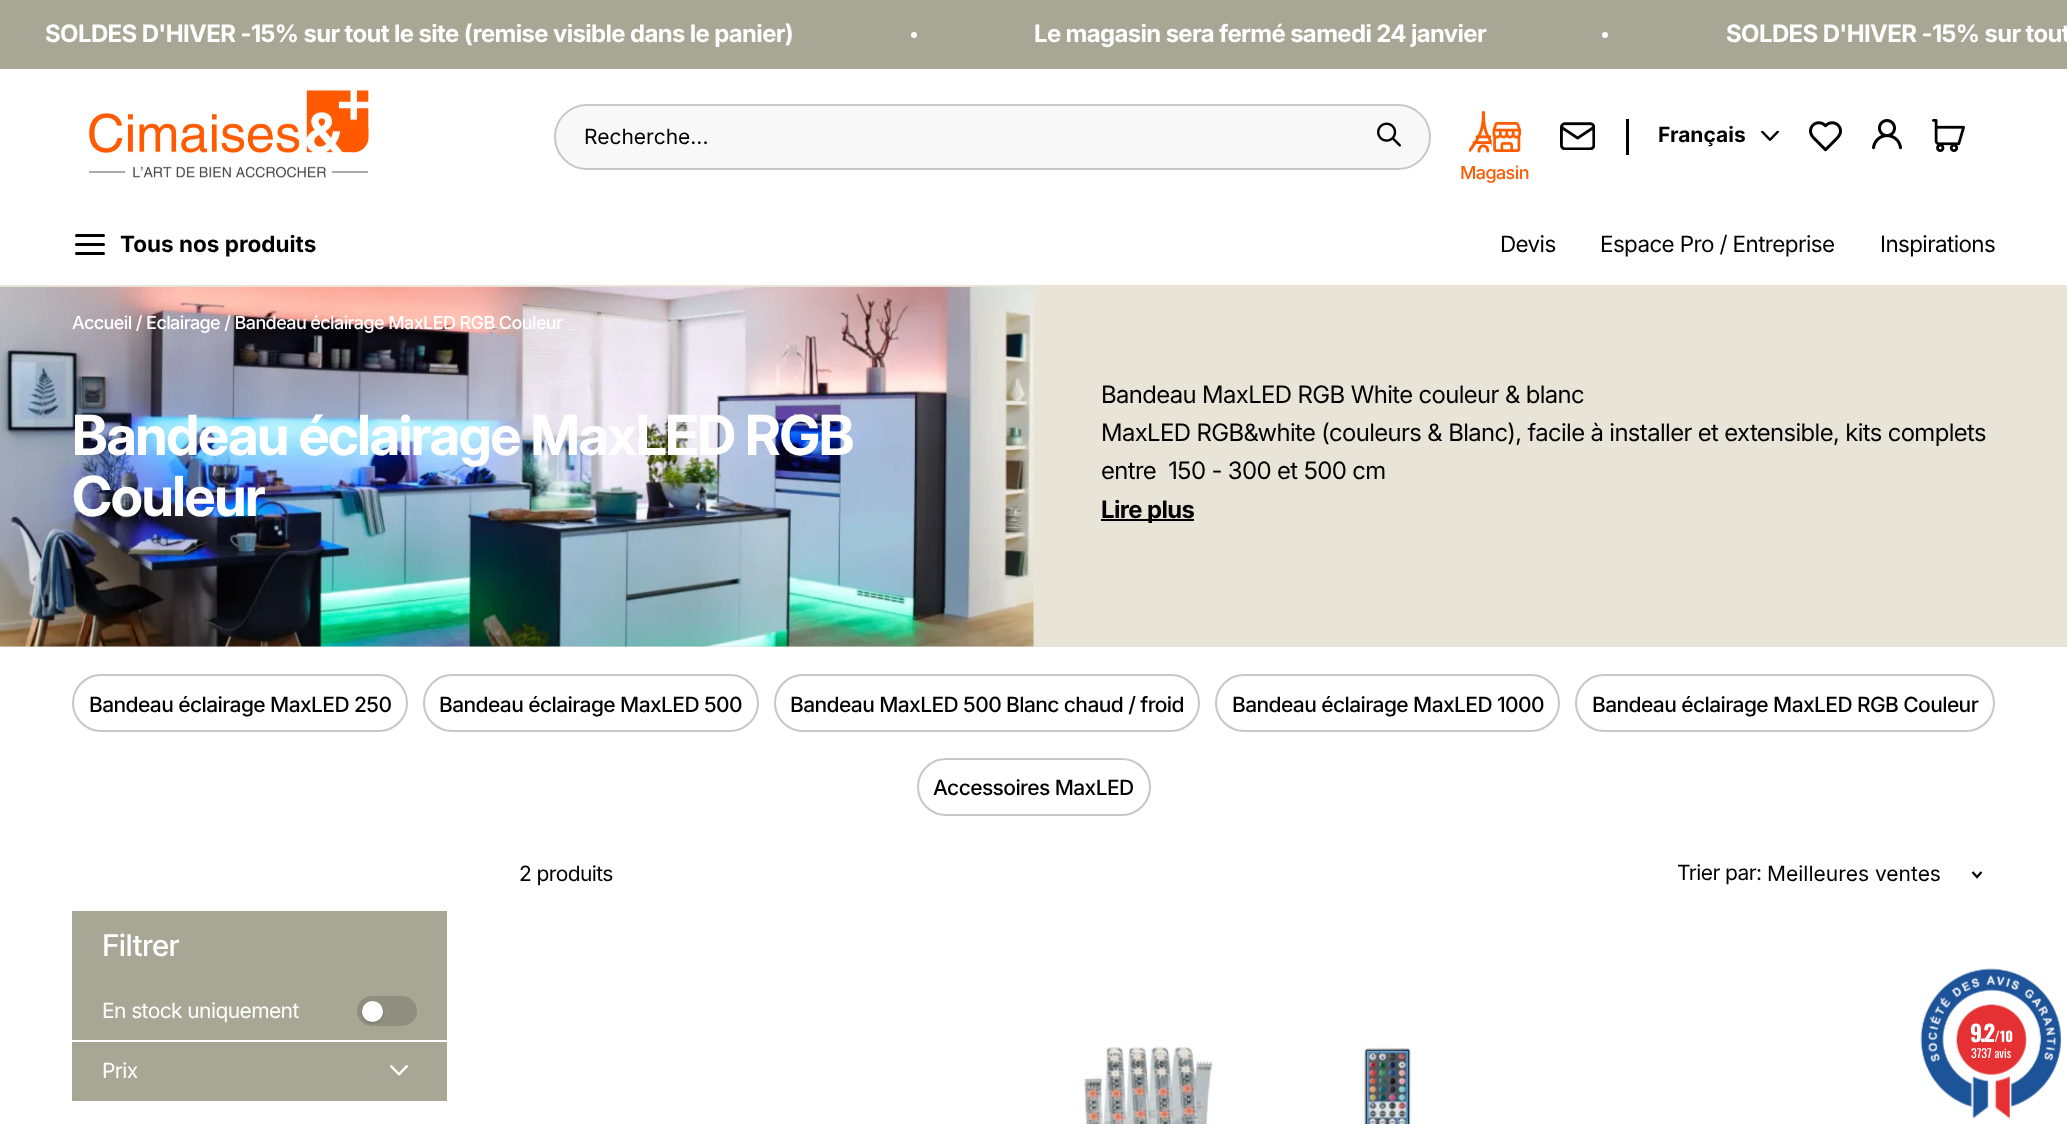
<svg xmlns="http://www.w3.org/2000/svg" width="2067" height="1124" viewBox="0 0 2067 1124">
  <rect width="100%" height="100%" fill="#fff"/>
  <path d="M0 0h2067v69H0z" fill="#a8a795"/>
  <circle cx="914" cy="35" r="3" fill="#fff"/>
  <circle cx="1605" cy="35" r="3" fill="#fff"/>
  <image x="89" y="90" width="280" height="88" href="img/1.png"/>
  <rect x="555" y="105" width="875" height="64" rx="32" fill="#f8f8f8" stroke="#c7c7c7" stroke-width="2"/>
  <image x="1377" y="122" width="24" height="25" href="img/2.png"/>
  <path d="M1626 119h3v36H1626z" fill="#000"/>
  <image x="1761" y="131" width="18" height="10" href="img/3.png"/>
  <image x="1809" y="121" width="33" height="31" href="img/4.png"/>
  <image x="1872" y="119" width="30" height="31" href="img/5.png"/>
  <image x="1932" y="119" width="33" height="33" href="img/6.png"/>
  <image x="1560" y="122" width="35" height="28" href="img/7.png"/>
  <image x="1469" y="111" width="52" height="42" href="img/8.png"/>
  <path d="M76.5 235.5H103.5M76.5 244.5H103.5M76.5 253.5H103.5" fill="none" stroke="#000" stroke-width="3" stroke-linecap="round" stroke-linejoin="round"/>
  <path d="M0 285h2067v362H0z" fill="#e8e4d7"/>
  <image x="0" y="287" width="1034" height="360" href="img/9.png"/>
  <path d="M1101 519h93v2H1101z" fill="#000"/>
  <rect x="73" y="675" width="334" height="56" rx="28" fill="none" stroke="#c7c7c7" stroke-width="2"/>
  <rect x="424" y="675" width="334" height="56" rx="28" fill="none" stroke="#c7c7c7" stroke-width="2"/>
  <rect x="775" y="675" width="424" height="56" rx="28" fill="none" stroke="#c7c7c7" stroke-width="2"/>
  <rect x="1216" y="675" width="343" height="56" rx="28" fill="none" stroke="#c7c7c7" stroke-width="2"/>
  <rect x="1576" y="675" width="418" height="56" rx="28" fill="none" stroke="#c7c7c7" stroke-width="2"/>
  <rect x="918" y="759" width="232" height="56" rx="28" fill="none" stroke="#c7c7c7" stroke-width="2"/>
  <path d="M1972.5 872L1977 877L1981.5 872" fill="none" stroke="#000" stroke-width="2.2"/>
  <path d="M72 911h375v190H72z" fill="#a8a795"/>
  <path d="M72 1040h375v2H72z" fill="#fff"/>
  <rect x="357" y="996" width="60" height="30" rx="15" fill="#8f8e7f"/>
  <rect x="362" y="1002" width="21" height="21" rx="10.5" fill="#00000033" filter="blur(1px)"/>
  <circle cx="372.5" cy="1011.5" r="10.5" fill="#fff"/>
  <image x="390" y="1065" width="18" height="11" href="img/10.png"/>
  <image x="1083" y="1046" width="329" height="78" href="img/11.png"/>
  <image x="1920" y="968" width="141" height="151" href="img/12.png"/>
  <g font-family="Inter" font-size="24" font-weight="bold" letter-spacing="-0.6" fill="#fff">
    <text x="45" y="42">SOLDES D'HIVER -15% sur tout le site (remise visible dans le panier)</text>
    <text x="1034" y="42">Le magasin sera fermé samedi 24 janvier</text>
    <text x="1726" y="42">SOLDES D'HIVER -15% sur tout</text>
  </g>
  <text x="584" y="144" font-family="Inter" font-size="21" fill="#000">Recherche...</text>
  <text x="1658" y="142" font-family="'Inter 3'" font-size="21" font-weight="bold" fill="#000">Français</text>
  <text x="1460" y="179" font-family="Inter" font-size="18" font-weight="500" letter-spacing="-0.6" fill="#ff5c01">Magasin</text>
  <text x="120" y="252" font-family="'Inter 3'" font-size="22.5" font-weight="bold" fill="#000">Tous nos produits</text>
  <g font-family="'Inter 3'" font-size="22.5" letter-spacing="-0.6" fill="#000">
    <text x="1500" y="252">Devis</text>
    <text x="1600" y="252">Espace Pro / Entreprise</text>
    <text x="1880" y="252">Inspirations</text>
  </g>
  <text x="72" y="329" font-family="Inter" font-size="18" font-weight="500" letter-spacing="-0.6" fill="#fff">Accueil / Eclairage / Bandeau éclairage MaxLED RGB Couleur</text>
  <g font-family="'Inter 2'" font-size="55.25" font-weight="bold" letter-spacing="-1.4" fill="#fff">
    <text x="72" y="455">Bandeau éclairage MaxLED RGB</text>
    <text x="72" y="516">Couleur</text>
  </g>
  <g font-family="'Inter 2'" font-size="24" letter-spacing="-0.6" fill="#000">
    <text x="1101" y="403">Bandeau MaxLED RGB White couleur &amp; blanc</text>
    <text x="1101" y="441">MaxLED RGB&amp;white (couleurs &amp; Blanc), facile à installer et extensible, kits complets</text>
    <text x="1101" y="479" xml:space="preserve">entre  150 - 300 et 500 cm</text>
  </g>
  <text x="1101" y="518" font-family="Inter" font-size="24" font-weight="bold" letter-spacing="-0.6" fill="#000">Lire plus</text>
  <g font-family="Inter" font-size="21" font-weight="500" letter-spacing="-0.6" fill="#000">
    <text x="89" y="712">Bandeau éclairage MaxLED 250</text>
    <text x="439" y="712">Bandeau éclairage MaxLED 500</text>
    <text x="790" y="712">Bandeau MaxLED 500 Blanc chaud / froid</text>
    <text x="1232" y="712">Bandeau éclairage MaxLED 1000</text>
    <text x="1592" y="712">Bandeau éclairage MaxLED RGB Couleur</text>
    <text x="933" y="795">Accessoires MaxLED</text>
  </g>
  <g font-family="Inter" font-size="21" letter-spacing="-0.6" fill="#000">
    <text x="519" y="881">2 produits</text>
    <text x="1677" y="880">Trier par:</text>
  </g>
  <text x="1767" y="881" font-family="Inter" font-size="21" fill="#000">Meilleures ventes</text>
  <text x="102" y="956" font-family="'Inter 2'" font-size="30" font-weight="500" letter-spacing="-0.6" fill="#fff">Filtrer</text>
  <g font-family="Inter" font-size="21" letter-spacing="-0.6" fill="#fff">
    <text x="102" y="1018">En stock uniquement</text>
    <text x="102" y="1078">Prix</text>
  </g>
  <text x="1970" y="1042" font-family="Oswald" font-size="22.5" font-weight="bold" letter-spacing="-2" fill="#fff">9.2</text>
  <text x="1994" y="1042" font-family="Oswald" font-size="14" font-weight="bold" fill="#fff">/10</text>
  <text x="1971" y="1058" font-family="Oswald" font-size="12" fill="#fff">3737 avis</text>
</svg>
